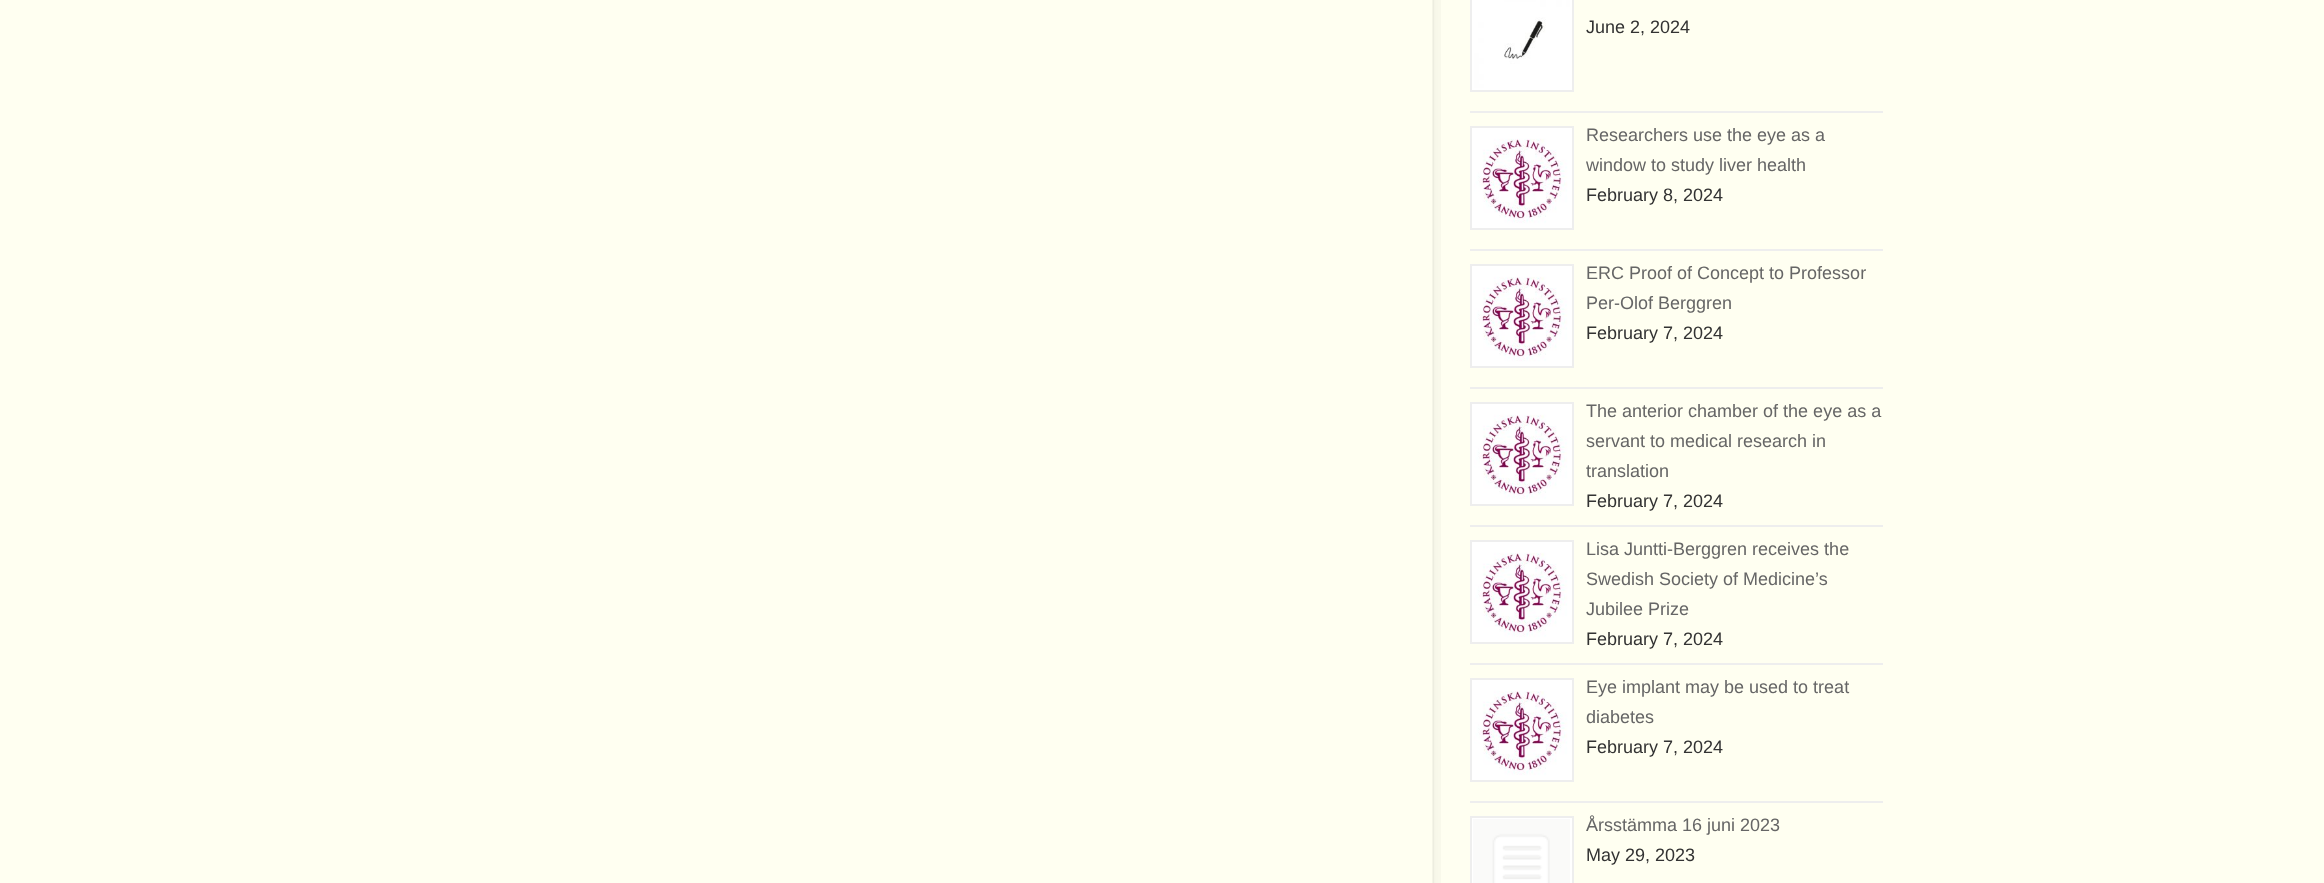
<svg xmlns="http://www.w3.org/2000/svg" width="2324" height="883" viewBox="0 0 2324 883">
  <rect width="100%" height="100%" fill="#fffff1"/>
  <image x="1432" y="0" width="9" height="883" href="img/1.png"/>
  <path d="M1470 111h413v2H1470z" fill="#eee"/>
  <path d="M1471 -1h102v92H1471z" fill="none" stroke="#eee" stroke-width="2"/>
  <path d="M1473 -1h98v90H1473z" fill="none" stroke="#fff" stroke-width="2"/>
  <image x="1474" y="0" width="96" height="88" href="img/2.png"/>
  <path d="M1470 249h413v2H1470z" fill="#eee"/>
  <path d="M1471 127h102v102H1471z" fill="none" stroke="#eee" stroke-width="2"/>
  <path d="M1473 129h98v98H1473z" fill="none" stroke="#fff" stroke-width="2"/>
  <image x="1474" y="130" width="96" height="96" href="img/3.png"/>
  <path d="M1470 387h413v2H1470z" fill="#eee"/>
  <path d="M1471 265h102v102H1471z" fill="none" stroke="#eee" stroke-width="2"/>
  <path d="M1473 267h98v98H1473z" fill="none" stroke="#fff" stroke-width="2"/>
  <image x="1474" y="268" width="96" height="96" href="img/3.png"/>
  <path d="M1470 525h413v2H1470z" fill="#eee"/>
  <path d="M1471 403h102v102H1471z" fill="none" stroke="#eee" stroke-width="2"/>
  <path d="M1473 405h98v98H1473z" fill="none" stroke="#fff" stroke-width="2"/>
  <image x="1474" y="406" width="96" height="96" href="img/3.png"/>
  <path d="M1470 663h413v2H1470z" fill="#eee"/>
  <path d="M1471 541h102v102H1471z" fill="none" stroke="#eee" stroke-width="2"/>
  <path d="M1473 543h98v98H1473z" fill="none" stroke="#fff" stroke-width="2"/>
  <image x="1474" y="544" width="96" height="96" href="img/3.png"/>
  <path d="M1470 801h413v2H1470z" fill="#eee"/>
  <path d="M1471 679h102v102H1471z" fill="none" stroke="#eee" stroke-width="2"/>
  <path d="M1473 681h98v98H1473z" fill="none" stroke="#fff" stroke-width="2"/>
  <image x="1474" y="682" width="96" height="96" href="img/3.png"/>
  <path d="M1471 817h102v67H1471z" fill="none" stroke="#eee" stroke-width="2"/>
  <path d="M1473 819h98v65H1473z" fill="none" stroke="#fff" stroke-width="2"/>
  <image x="1473" y="819" width="97" height="64" href="img/4.png"/>
  <text x="1586" y="33" font-family="Liberation Sans" font-size="18" fill="#333">June 2, 2024</text>
  <g font-family="Liberation Sans" font-size="18" fill="#666">
    <text x="1586" y="141">Researchers use the eye as a</text>
    <text x="1586" y="171">window to study liver health</text>
  </g>
  <text x="1586" y="201" font-family="Liberation Sans" font-size="18" fill="#333">February 8, 2024</text>
  <g font-family="Liberation Sans" font-size="18" fill="#666">
    <text x="1586" y="279">ERC Proof of Concept to Professor</text>
    <text x="1586" y="309">Per-Olof Berggren</text>
  </g>
  <text x="1586" y="339" font-family="Liberation Sans" font-size="18" fill="#333">February 7, 2024</text>
  <g font-family="Liberation Sans" font-size="18" fill="#666">
    <text x="1586" y="417">The anterior chamber of the eye as a</text>
    <text x="1586" y="447">servant to medical research in</text>
    <text x="1586" y="477">translation</text>
  </g>
  <text x="1586" y="507" font-family="Liberation Sans" font-size="18" fill="#333">February 7, 2024</text>
  <g font-family="Liberation Sans" font-size="18" fill="#666">
    <text x="1586" y="555">Lisa Juntti-Berggren receives the</text>
    <text x="1586" y="585">Swedish Society of Medicine’s</text>
    <text x="1586" y="615">Jubilee Prize</text>
  </g>
  <text x="1586" y="645" font-family="Liberation Sans" font-size="18" fill="#333">February 7, 2024</text>
  <g font-family="Liberation Sans" font-size="18" fill="#666">
    <text x="1586" y="693">Eye implant may be used to treat</text>
    <text x="1586" y="723">diabetes</text>
  </g>
  <text x="1586" y="753" font-family="Liberation Sans" font-size="18" fill="#333">February 7, 2024</text>
  <text x="1586" y="831" font-family="Liberation Sans" font-size="18" fill="#666">Årsstämma 16 juni 2023</text>
  <text x="1586" y="861" font-family="Liberation Sans" font-size="18" fill="#333">May 29, 2023</text>
</svg>
